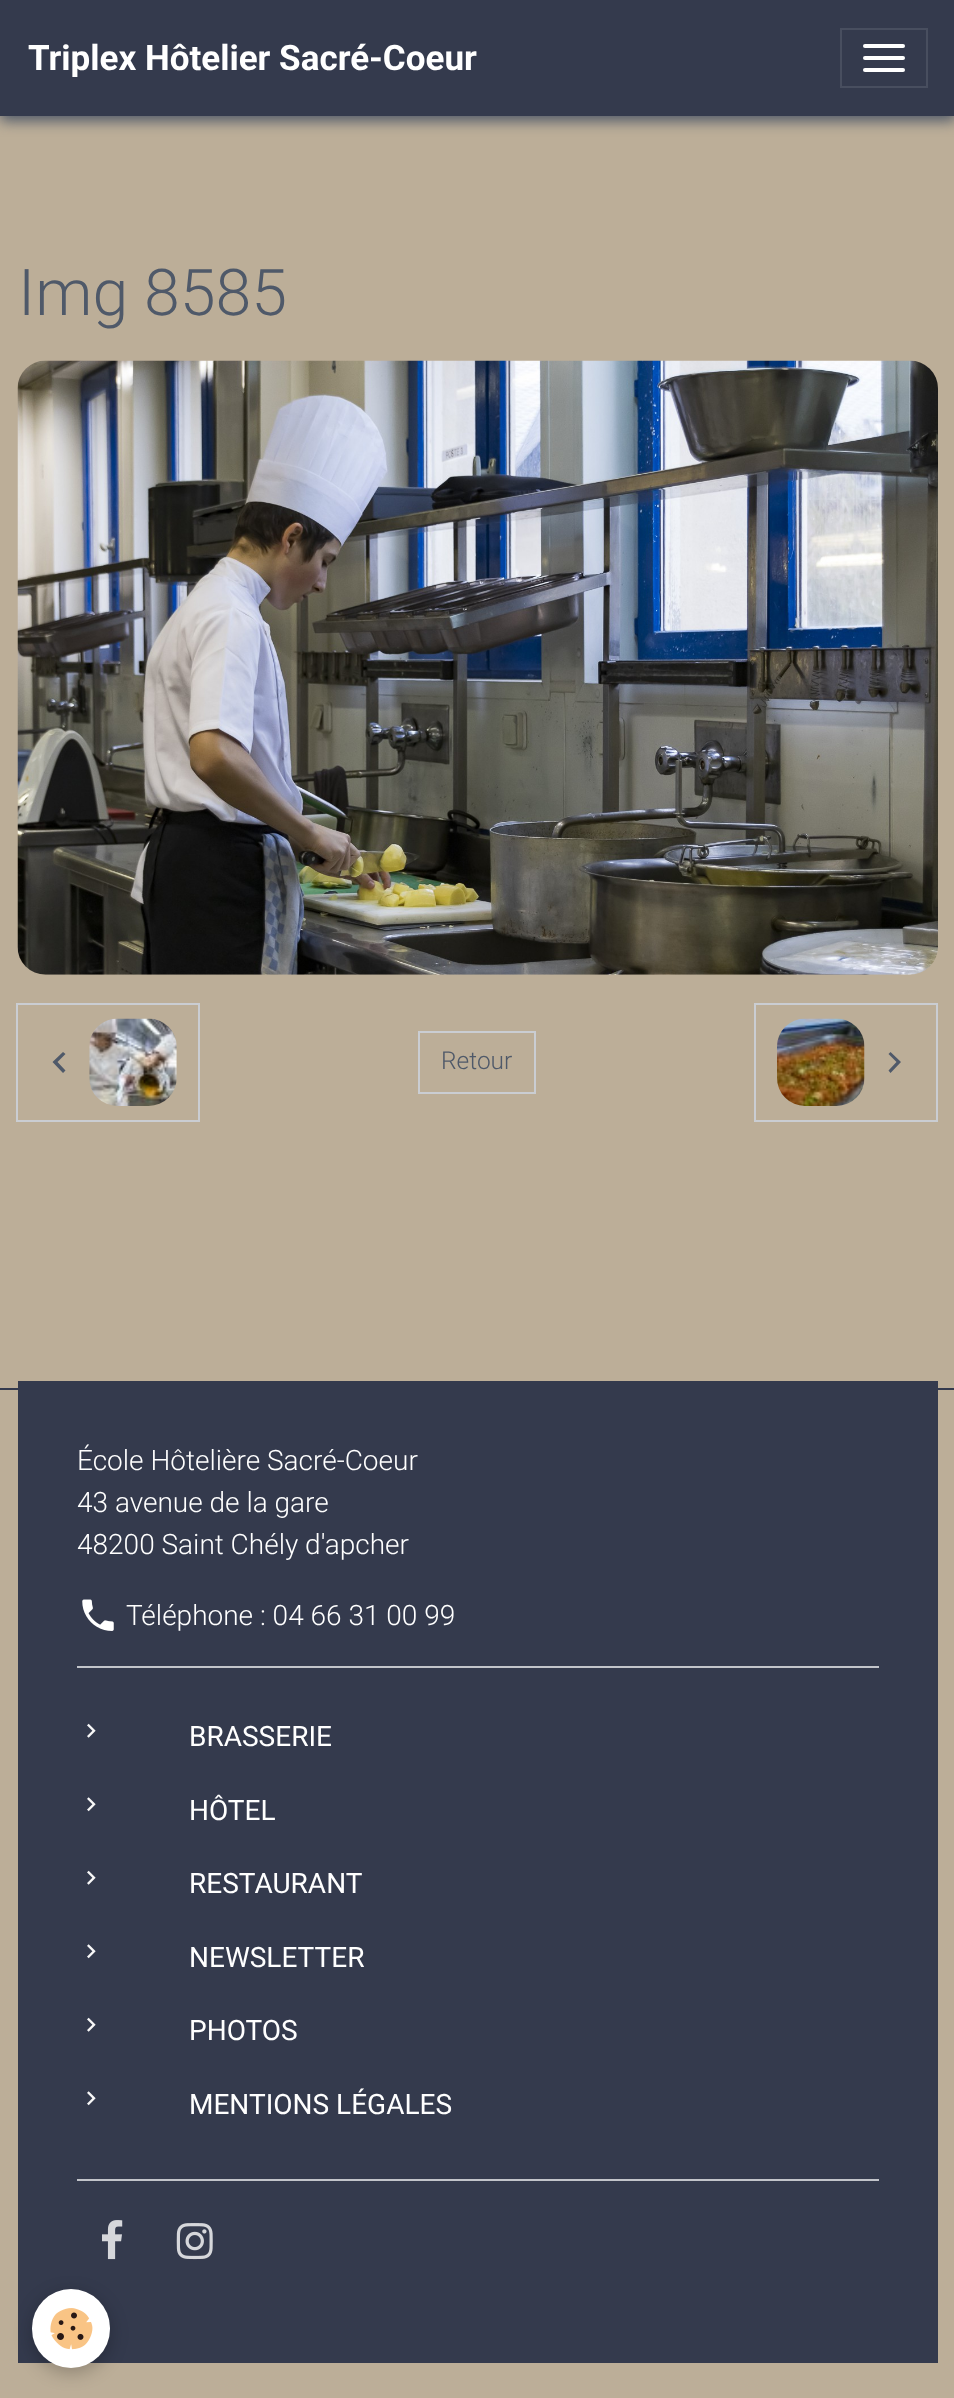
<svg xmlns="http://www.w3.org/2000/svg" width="954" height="2398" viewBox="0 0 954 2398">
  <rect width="100%" height="100%" fill="#bcae98"/>
  <path d="M0 5h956v116H0z" fill="#4f5969" filter="blur(7px)"/>
  <path d="M0 0h954v116H0z" fill="#343a4d"/>
  <path d="M841 29h86v58H841z" fill="none" stroke="#484e5f" stroke-width="2"/>
  <rect x="863" y="44" width="42" height="4" rx="2" fill="#fff"/>
  <rect x="863" y="56" width="42" height="4" rx="2" fill="#fff"/>
  <rect x="863" y="68" width="42" height="4" rx="2" fill="#fff"/>
  <image x="17" y="360" width="921" height="615" href="img/1.png"/>
  <path d="M17 1004h182v117H17z" fill="none" stroke="#cacdd2" stroke-width="2"/>
  <path d="M65.5 1054L57.5 1062L65.5 1070.5L63 1073L52.5 1062L63 1052Z" fill="#4f5969"/>
  <image x="89" y="1018" width="88" height="88" href="img/2.png"/>
  <path d="M419 1032h116v61H419z" fill="none" stroke="#cacdd2" stroke-width="2"/>
  <path d="M755 1004h182v117H755z" fill="none" stroke="#cacdd2" stroke-width="2"/>
  <image x="777" y="1018" width="88" height="88" href="img/3.png"/>
  <path d="M890.5 1052L901 1062L890.5 1073L888.5 1070.5L896.5 1062L888.5 1054Z" fill="#4f5969"/>
  <path d="M0 1388h954v2H0z" fill="#343a4d"/>
  <path d="M18 1381h920v982H18z" fill="#343a4d"/>
  <image x="82" y="1599" width="32" height="32" href="img/4.png"/>
  <path d="M77 1666h802v2H77z" fill="#c2c4ca"/>
  <image x="87" y="1723" width="9" height="15" href="img/5.png"/>
  <image x="87" y="1797" width="9" height="15" href="img/6.png"/>
  <image x="87" y="1870" width="9" height="15" href="img/5.png"/>
  <image x="87" y="1944" width="9" height="15" href="img/6.png"/>
  <image x="87" y="2017" width="9" height="15" href="img/5.png"/>
  <image x="87" y="2091" width="9" height="15" href="img/6.png"/>
  <path d="M77 2179h802v2H77z" fill="#c2c4ca"/>
  <image x="102" y="2220" width="21" height="40" href="img/7.png"/>
  <image x="176" y="2223" width="37" height="37" href="img/8.png"/>
  <rect x="32" y="2294" width="78" height="79" rx="39" fill="#0000003d" filter="blur(9px)"/>
  <rect x="32" y="2289" width="78" height="79" rx="39" fill="#fff"/>
  <image x="50" y="2308" width="43" height="42" href="img/9.png"/>
  <text x="28" y="70" font-family="Roboto" font-size="35" font-weight="bold" fill="#fff">Triplex Hôtelier Sacré-Coeur</text>
  <text x="18" y="315" font-family="Roboto" font-size="64.5" font-weight="300" fill="#4f5969">Img 8585</text>
  <text x="441" y="1069" font-family="Roboto" font-size="24.5" font-weight="300" fill="#4f5969">Retour</text>
  <g font-family="Roboto" font-size="28" font-weight="300" fill="#fff">
    <text x="77" y="1470">École Hôtelière Sacré-Coeur</text>
    <text x="77" y="1512">43 avenue de la gare</text>
    <text x="77" y="1554">48200 Saint Chély d'apcher</text>
    <text x="126" y="1625">Téléphone : 04 66 31 00 99</text>
  </g>
  <g font-family="Roboto" font-size="28" fill="#fff">
    <text x="189" y="1746">BRASSERIE</text>
    <text x="189" y="1820">HÔTEL</text>
    <text x="189" y="1893">RESTAURANT</text>
    <text x="189" y="1967">NEWSLETTER</text>
    <text x="189" y="2040">PHOTOS</text>
    <text x="189" y="2114">MENTIONS LÉGALES</text>
  </g>
</svg>
